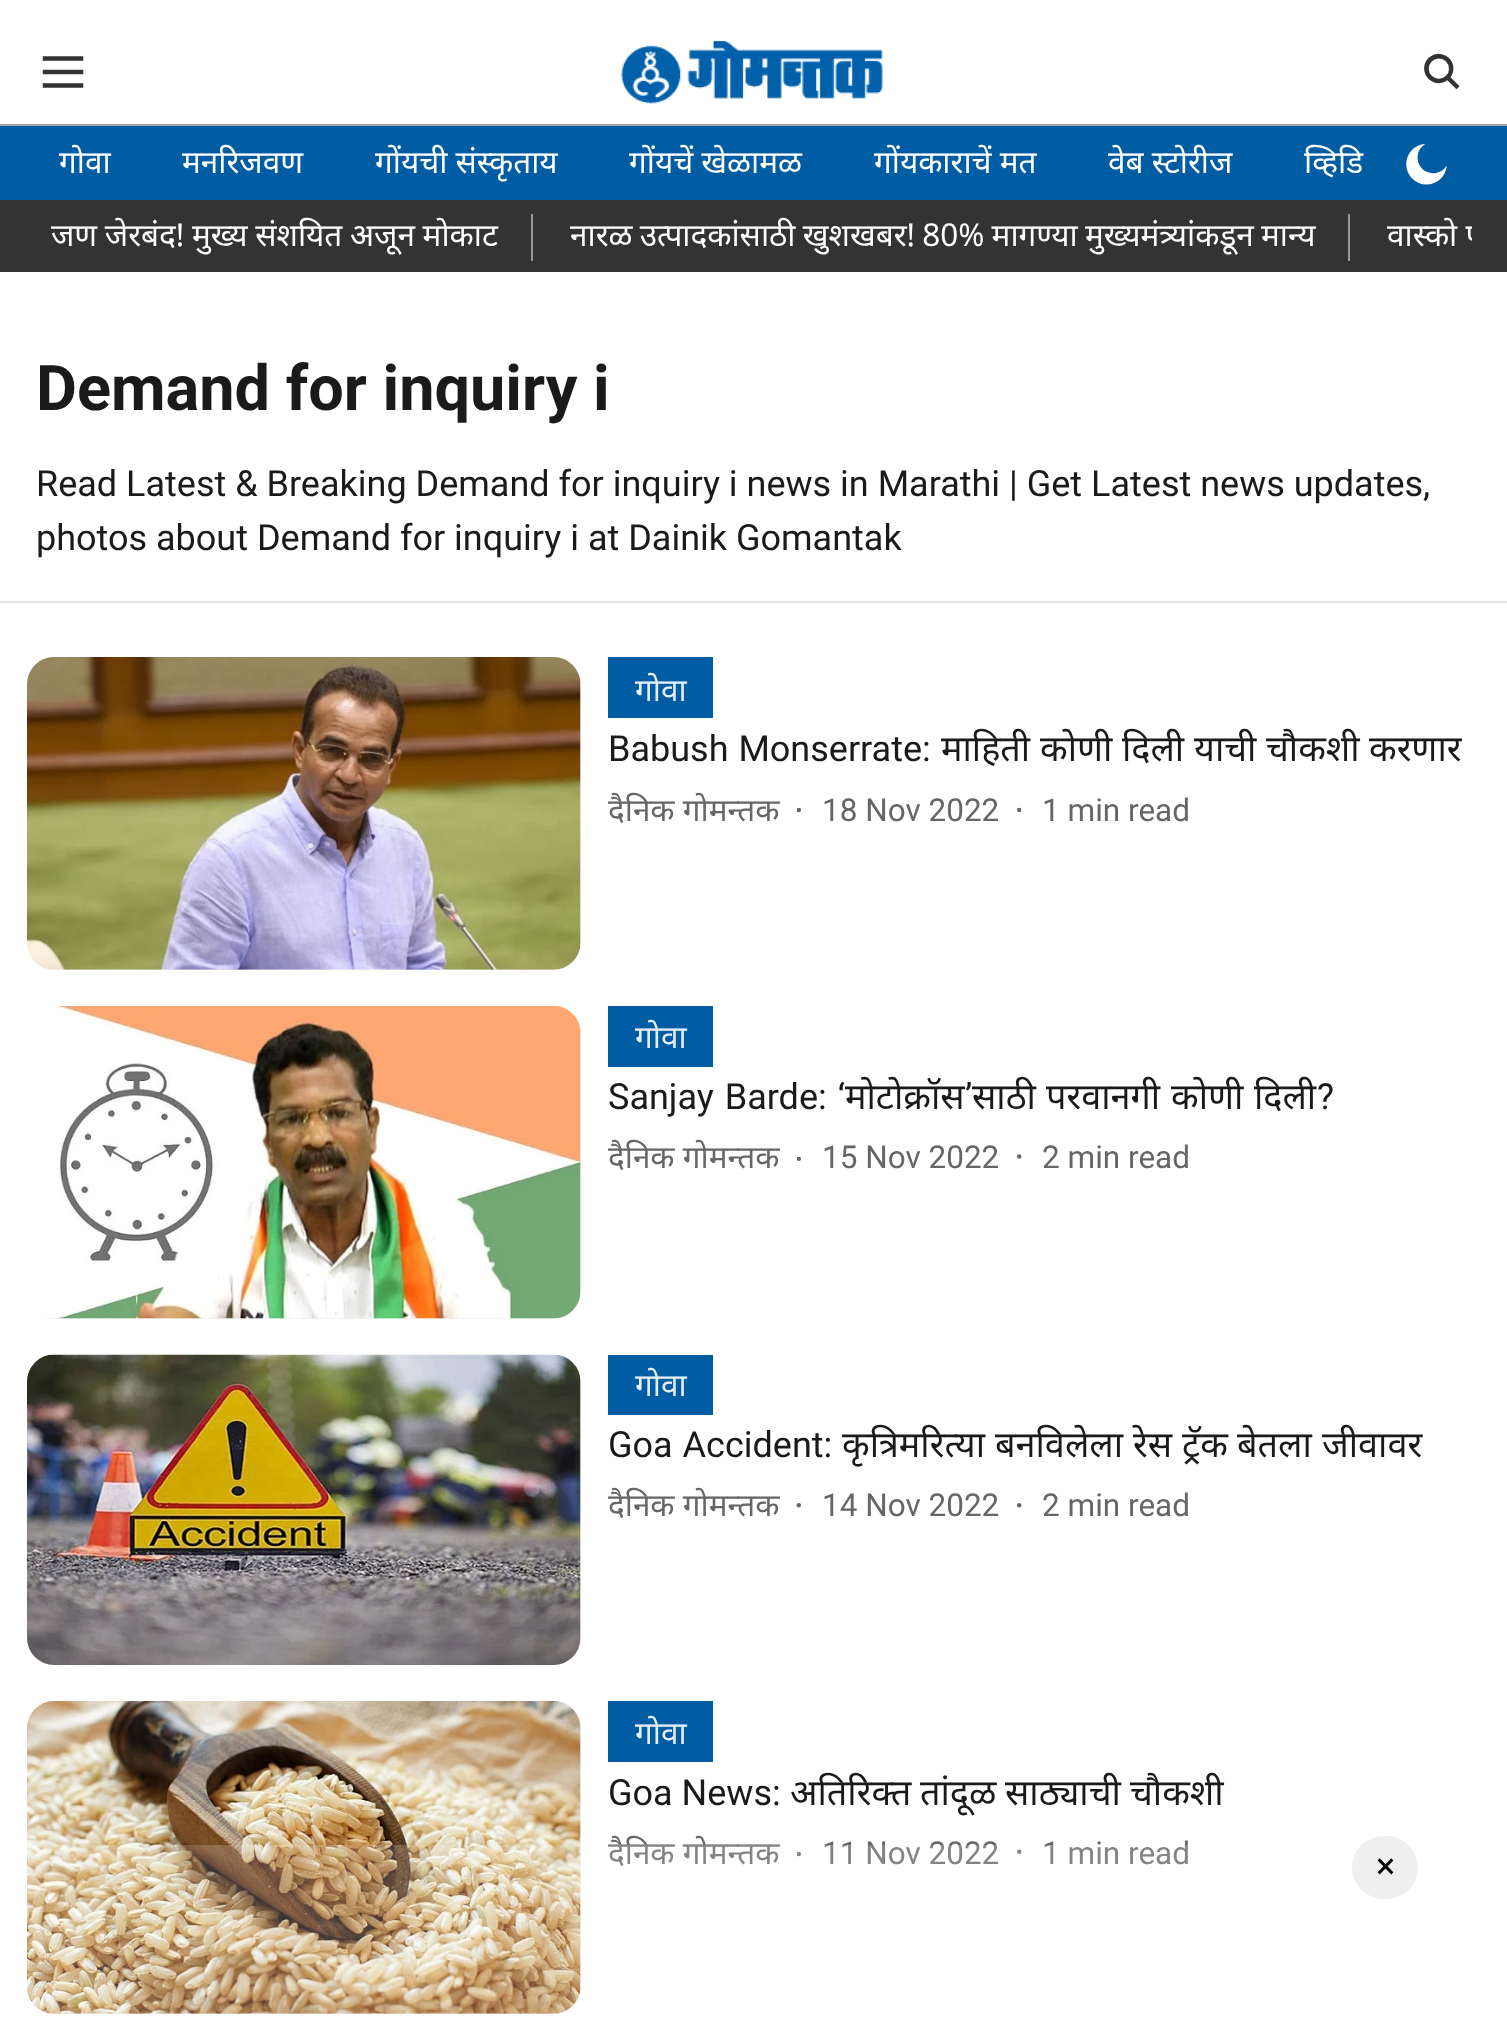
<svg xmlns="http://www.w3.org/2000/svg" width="1507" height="2023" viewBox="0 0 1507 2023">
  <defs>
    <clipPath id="clip1"><path d="M797 808h7v7H797z"/></clipPath>
    <clipPath id="clip2"><path d="M797 1157h7v7H797z"/></clipPath>
    <clipPath id="clip3"><path d="M797 1852h7v7H797z"/></clipPath>
    <clipPath id="clip4"><path d="M36 214h1436v47H36z"/></clipPath>
  </defs>
  <rect width="100%" height="100%" fill="#fff"/>
  <path d="M0 124h1507v2H0z" fill="#a4a4a4"/>
  <image x="42" y="56" width="42" height="32" href="img/1.png"/>
  <image x="621" y="40" width="262" height="64" href="img/2.png"/>
  <image x="1424" y="53" width="36" height="37" href="img/3.png"/>
  <path d="M0 126h1507v74H0z" fill="#005da3"/>
  <image x="1406" y="144" width="41" height="41" href="img/4.png"/>
  <path d="M0 200h1507v72H0z" fill="#333"/>
  <path d="M531 214h2v47H531z" fill="#999"/>
  <path d="M1348 214h2v47H1348z" fill="#999"/>
  <path d="M0 601h1507v2H0z" fill="#e6e6e6"/>
  <rect x="27" y="657" width="554" height="313" rx="27" fill="#f0f0f0"/>
  <image x="27" y="657" width="554" height="313" href="img/5.png"/>
  <path d="M608 657h105v61H608z" fill="#005da3"/>
  <g clip-path="url(#clip1)">
    <circle cx="798.8" cy="810" r="2.2" fill="#666"/>
  </g>
  <circle cx="1019.2" cy="810" r="2.2" fill="#666"/>
  <rect x="27" y="1006" width="554" height="313" rx="27" fill="#f0f0f0"/>
  <image x="27" y="1005" width="554" height="314" href="img/6.png"/>
  <path d="M608 1006h105v61H608z" fill="#005da3"/>
  <g clip-path="url(#clip2)">
    <circle cx="798.8" cy="1158.8" r="2.2" fill="#666"/>
  </g>
  <circle cx="1019.2" cy="1156.5" r="2.2" fill="#666"/>
  <rect x="27" y="1355" width="554" height="310" rx="27" fill="#f0f0f0"/>
  <image x="27" y="1354" width="554" height="311" href="img/7.png"/>
  <path d="M608 1355h105v60H608z" fill="#005da3"/>
  <circle cx="798.8" cy="1505.2" r="2.2" fill="#666"/>
  <circle cx="1019.2" cy="1505.2" r="2.2" fill="#666"/>
  <rect x="27" y="1701" width="554" height="313" rx="27" fill="#f0f0f0"/>
  <image x="27" y="1701" width="554" height="313" href="img/8.png"/>
  <path d="M608 1701h105v61H608z" fill="#005da3"/>
  <g clip-path="url(#clip3)">
    <circle cx="798.8" cy="1854" r="2.2" fill="#666"/>
  </g>
  <circle cx="1019.2" cy="1851.8" r="2.2" fill="#666"/>
  <rect x="1352" y="1836" width="66" height="63" rx="31.5" fill="#efefef"/>
  <g font-family="Noto Sans" font-size="31.5" fill="#fff">
    <text x="59" y="173">गोवा</text>
    <text x="182" y="173">मनरिजवण</text>
    <text x="375" y="173">गोंयची संस्कृताय</text>
    <text x="629" y="173">गोंयचें खेळामळ</text>
    <text x="874" y="173">गोंयकाराचें मत</text>
    <text x="1108" y="173">वेब स्टोरीज</text>
    <text x="1304" y="173">व्हिडि</text>
    <text x="51" y="246" word-spacing="-0.5">जण जेरबंद! मुख्य संशयित अजून मोकाट</text>
    <text x="570" y="246" word-spacing="-1">नारळ उत्पादकांसाठी खुशखबर! 80% मागण्या मुख्यमंत्र्यांकडून मान्य</text>
  </g>
  <g clip-path="url(#clip4)">
    <text x="1387" y="246" font-family="Noto Sans" font-size="31.5" fill="#fff">वास्को प</text>
  </g>
  <text x="36" y="410" font-family="Roboto" font-size="63" font-weight="bold" fill="#1a1a1a">Demand for inquiry i</text>
  <g font-family="Roboto" font-size="36" fill="#1a1a1a">
    <text x="36" y="496">Read Latest &amp; Breaking Demand for inquiry i news in Marathi | Get Latest news updates,</text>
    <text x="36" y="550">photos about Demand for inquiry i at Dainik Gomantak</text>
  </g>
  <text x="635" y="701" font-family="Noto Sans" font-size="31.5" fill="#e6eff6">गोवा</text>
  <text x="608" y="761" word-spacing="1" font-family="Roboto" font-size="36" fill="#1a1a1a">Babush Monserrate:</text>
  <g font-family="Noto Sans" font-size="36" fill="#1a1a1a">
    <text x="941" y="761">माहिती</text>
    <text x="1040" y="761">कोणी</text>
    <text x="1122" y="761">दिली</text>
    <text x="1194" y="761">याची</text>
    <text x="1266" y="761">चौकशी</text>
    <text x="1369" y="761">करणार</text>
  </g>
  <text x="608" y="821" font-family="Noto Sans" font-size="31.5" fill="#666">दैनिक गोमन्तक</text>
  <g font-family="Roboto" font-size="31.5" fill="#666">
    <text x="822" y="821">18 Nov 2022</text>
    <text x="1042" y="821">1 min read</text>
  </g>
  <text x="635" y="1048" font-family="Noto Sans" font-size="31.5" fill="#e6eff6">गोवा</text>
  <text x="608" y="1109" word-spacing="2" font-family="Roboto" font-size="36" fill="#1a1a1a">Sanjay Barde: ‘</text>
  <text x="845" y="1109" font-family="Noto Sans" font-size="36" fill="#1a1a1a">मोटोक्रॉस</text>
  <text x="965" y="1109" font-family="Roboto" font-size="36" fill="#1a1a1a">’</text>
  <g font-family="Noto Sans" font-size="36" fill="#1a1a1a">
    <text x="972" y="1109">साठी</text>
    <text x="1046" y="1109">परवानगी</text>
    <text x="1171" y="1109">कोणी</text>
    <text x="1254" y="1109">दिली</text>
  </g>
  <text x="1317" y="1109" font-family="Roboto" font-size="36" fill="#1a1a1a">?</text>
  <text x="608" y="1168" font-family="Noto Sans" font-size="31.5" fill="#666">दैनिक गोमन्तक</text>
  <g font-family="Roboto" font-size="31.5" fill="#666">
    <text x="822" y="1168">15 Nov 2022</text>
    <text x="1042" y="1168">2 min read</text>
  </g>
  <text x="635" y="1396" font-family="Noto Sans" font-size="31.5" fill="#e6eff6">गोवा</text>
  <text x="608" y="1457" word-spacing="1" font-family="Roboto" font-size="36" fill="#1a1a1a">Goa Accident:</text>
  <g font-family="Noto Sans" font-size="36" fill="#1a1a1a">
    <text x="842" y="1457">कृत्रिमरित्या</text>
    <text x="995" y="1457">बनविलेला</text>
    <text x="1133" y="1457">रेस</text>
    <text x="1182" y="1457">ट्रॅक</text>
    <text x="1237" y="1457">बेतला</text>
    <text x="1322" y="1457">जीवावर</text>
  </g>
  <text x="608" y="1516" font-family="Noto Sans" font-size="31.5" fill="#666">दैनिक गोमन्तक</text>
  <g font-family="Roboto" font-size="31.5" fill="#666">
    <text x="822" y="1516">14 Nov 2022</text>
    <text x="1042" y="1516">2 min read</text>
  </g>
  <text x="635" y="1744" font-family="Noto Sans" font-size="31.5" fill="#e6eff6">गोवा</text>
  <text x="608" y="1805" font-family="Roboto" font-size="36" fill="#1a1a1a">Goa News:</text>
  <g font-family="Noto Sans" font-size="36" fill="#1a1a1a">
    <text x="790" y="1805">अतिरिक्त</text>
    <text x="920" y="1805">तांदूळ</text>
    <text x="1005" y="1805">साठ्याची</text>
    <text x="1130" y="1805">चौकशी</text>
  </g>
  <text x="608" y="1864" font-family="Noto Sans" font-size="31.5" fill="#666">दैनिक गोमन्तक</text>
  <g font-family="Roboto" font-size="31.5" fill="#666">
    <text x="822" y="1864">11 Nov 2022</text>
    <text x="1042" y="1864">1 min read</text>
  </g>
  <path d="M27 1845h1161v169H27z" fill="#ffffff33"/>
  <text x="1376" y="1878" font-family="Roboto" font-size="36" fill="#000">×</text>
</svg>
